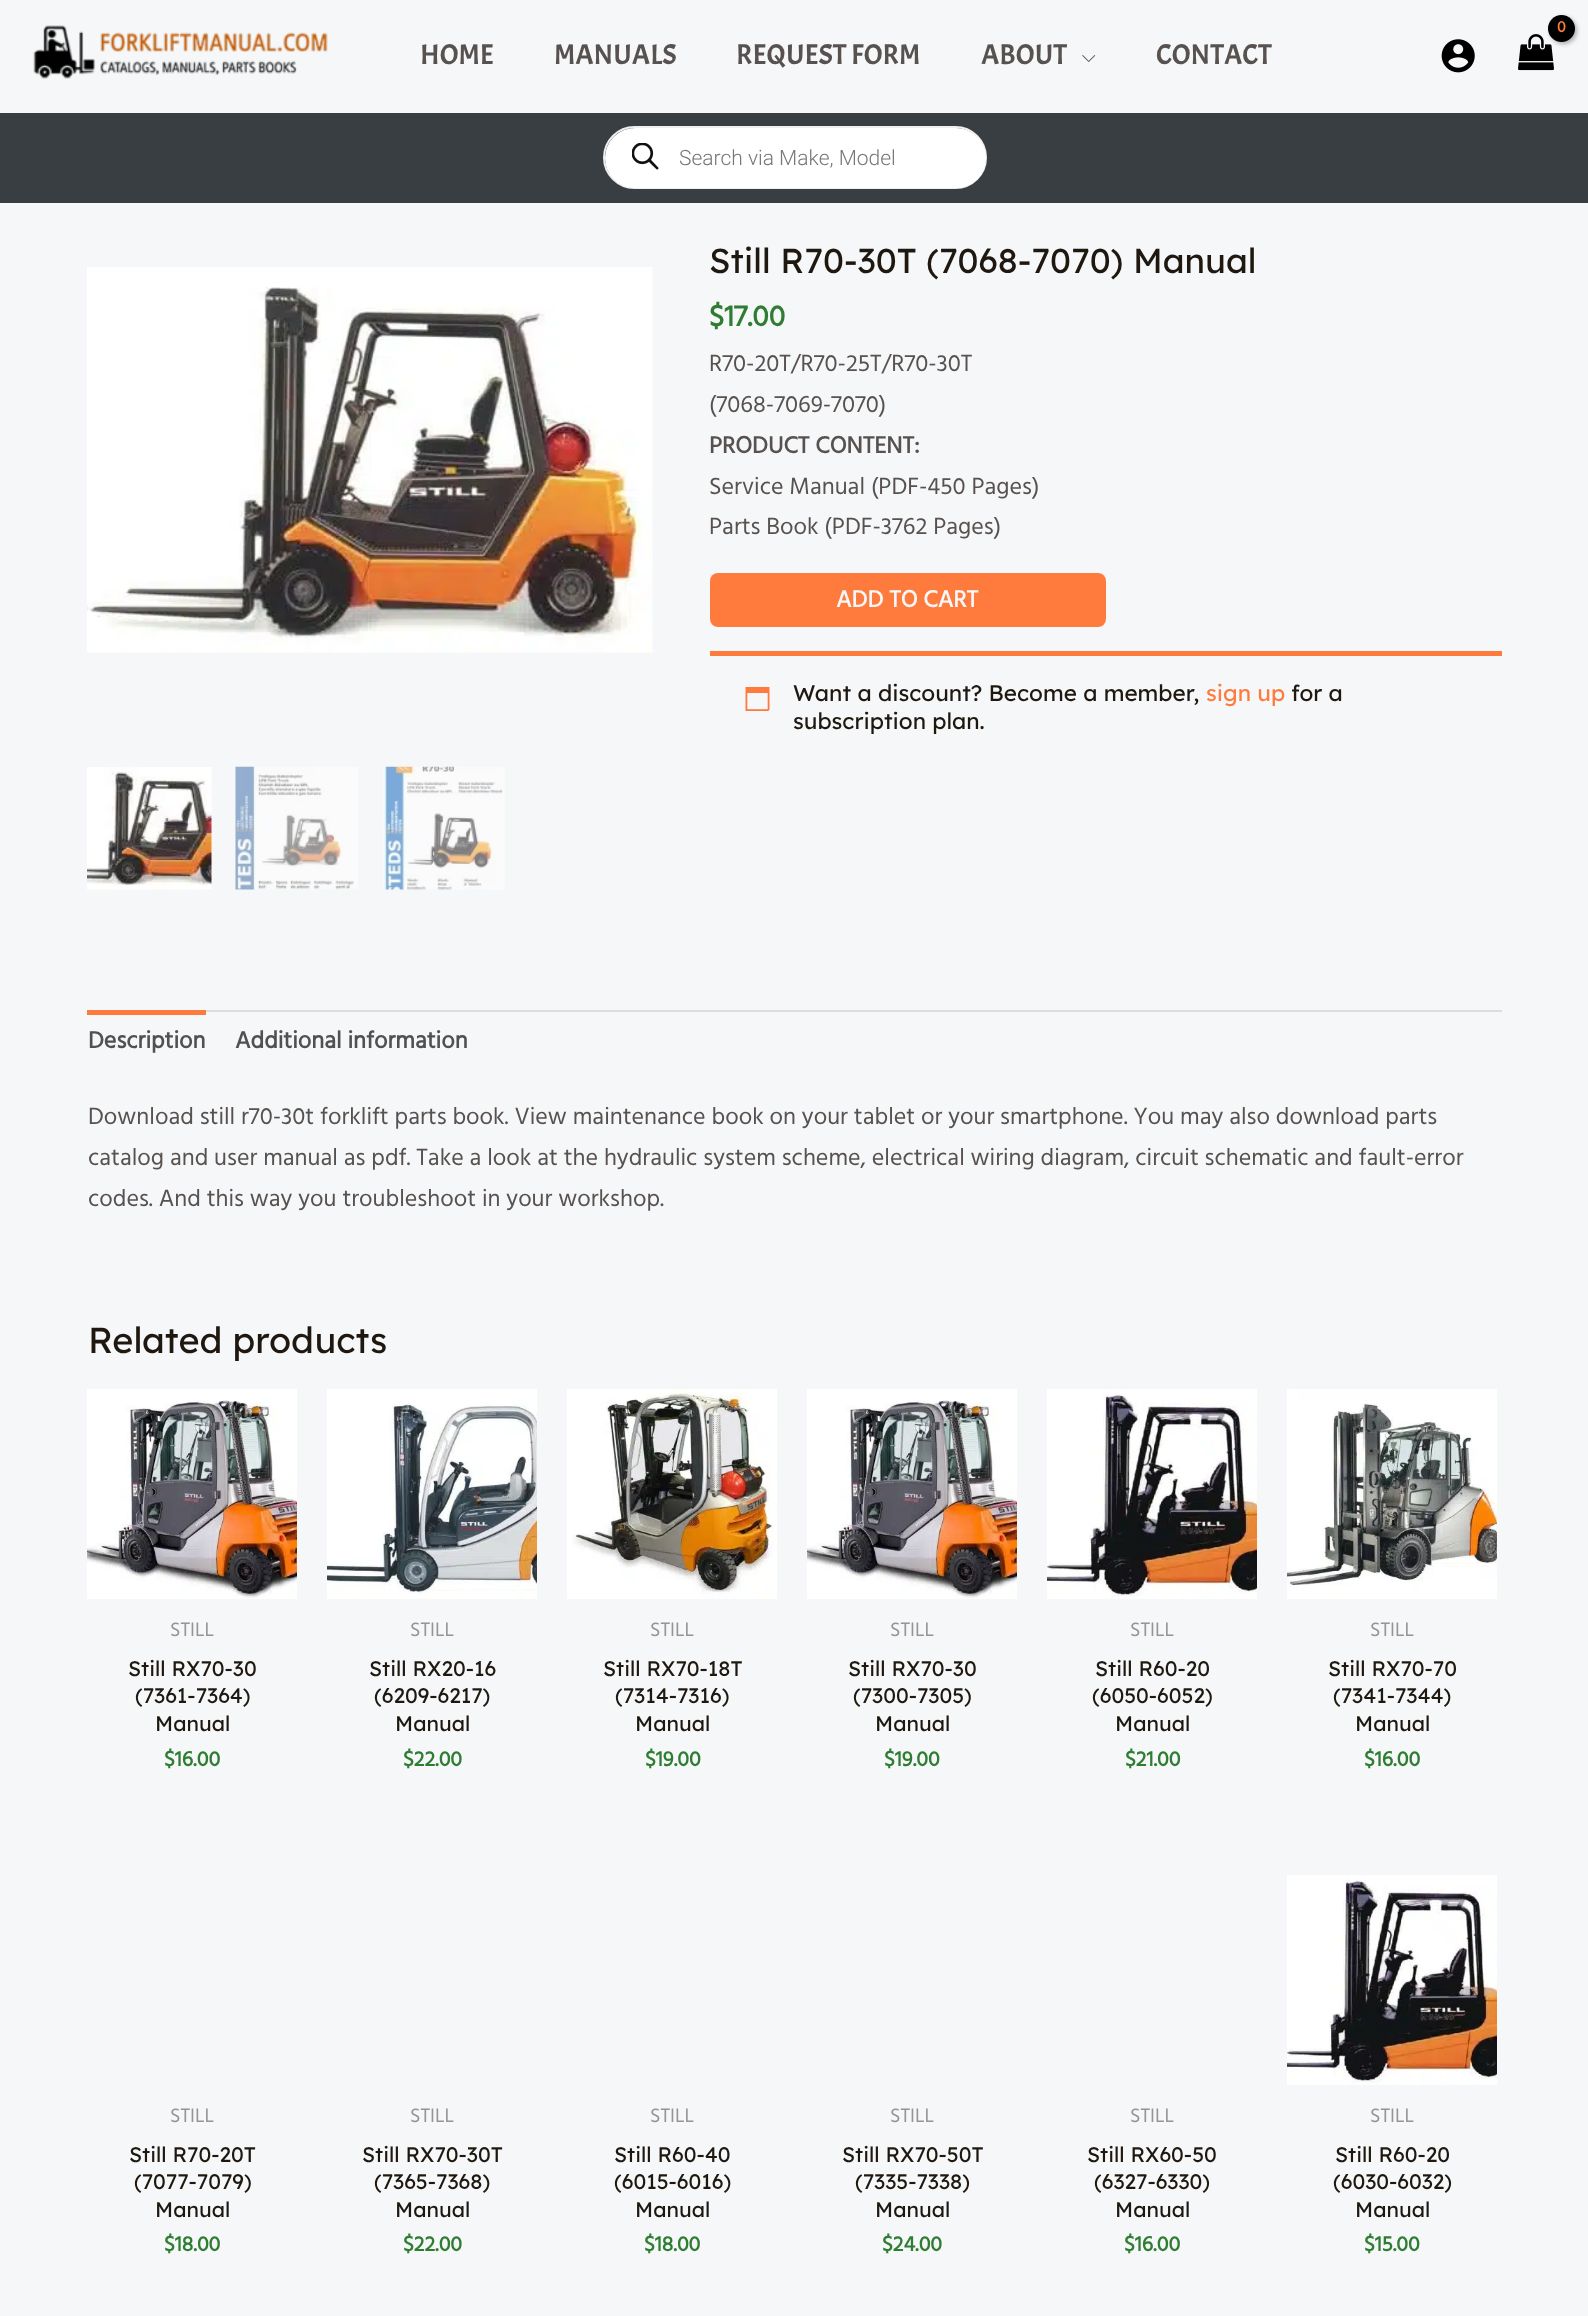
<svg xmlns="http://www.w3.org/2000/svg" width="1588" height="2316" viewBox="0 0 1588 2316">
  <rect width="100%" height="100%" fill="#f6f7f8"/>
  <image x="33" y="25" width="295" height="54" href="img/1.png"/>
  <image x="1082" y="55" width="14" height="7" href="img/2.png"/>
  <image x="1518" y="34" width="36" height="37" href="img/3.png"/>
  <rect x="1550" y="17" width="27" height="27" rx="13.5" fill="#0000004d" filter="blur(2px)"/>
  <circle cx="1561.5" cy="28.5" r="13.5" fill="#000"/>
  <image x="1441" y="39" width="34" height="34" href="img/4.png"/>
  <path d="M0 113h1588v90H0z" fill="#383e42"/>
  <rect x="604" y="127" width="382" height="61" rx="30.5" fill="none" stroke="#eee" stroke-width="2"/>
  <rect x="605" y="128" width="381" height="60" rx="30" fill="#fff"/>
  <image x="632" y="143" width="27" height="27" href="img/5.png"/>
  <image x="87" y="267" width="566" height="386" href="img/6.png"/>
  <image x="87" y="767" width="125" height="123" href="img/7.png"/>
  <image x="235" y="766" width="123" height="124" href="img/8.png"/>
  <image x="383" y="766" width="122" height="124" href="img/9.png"/>
  <rect x="710" y="573" width="396" height="54" rx="8" fill="#ff7a3d"/>
  <path d="M710 651h792v5H710z" fill="#ff7a3d"/>
  <image x="745" y="687" width="25" height="24" href="img/10.png"/>
  <path d="M206 1010h1296v2H206z" fill="#ddd"/>
  <path d="M87 1010h119v5H87z" fill="#ff7a3d"/>
  <image x="87" y="1389" width="210" height="210" href="img/11.png"/>
  <image x="327" y="1389" width="210" height="210" href="img/12.png"/>
  <image x="567" y="1389" width="210" height="210" href="img/13.png"/>
  <image x="807" y="1389" width="210" height="210" href="img/14.png"/>
  <image x="1047" y="1389" width="210" height="210" href="img/15.png"/>
  <image x="1287" y="1389" width="210" height="210" href="img/16.png"/>
  <image x="1287" y="1875" width="210" height="210" href="img/17.png"/>
  <g font-family="Acme" font-size="28.5" fill="#575250">
    <text x="420" y="64">HOME</text>
    <text x="554" y="64">MANUALS</text>
    <text x="736" y="64">REQUEST FORM</text>
    <text x="981" y="64">ABOUT</text>
    <text x="1156" y="64">CONTACT</text>
  </g>
  <text x="1557" y="32" font-family="Hind" font-size="16" font-weight="bold" letter-spacing="-1" fill="#ff7a3d">0</text>
  <text x="679" y="165" font-family="Roboto" font-size="21" font-weight="300" fill="#777">Search via Make, Model</text>
  <text x="709" y="273" font-family="Lexend" font-size="34.5" fill="#1e1810">Still R70-30T (7068-7070) Manual</text>
  <text x="709" y="326" font-family="Hind" font-size="30" font-weight="bold" fill="#2e7d32">$17.00</text>
  <g font-family="Hind" font-size="24" fill="#575250">
    <text x="709" y="371">R70-20T/R70-25T/R70-30T</text>
    <text x="709" y="412">(7068-7069-7070)</text>
  </g>
  <text x="709" y="453" font-family="Hind" font-size="24" font-weight="bold" fill="#575250">PRODUCT CONTENT:</text>
  <g font-family="Hind" font-size="24" fill="#575250">
    <text x="709" y="494">Service Manual (PDF-450 Pages)</text>
    <text x="709" y="534">Parts Book (PDF-3762 Pages)</text>
  </g>
  <text x="836" y="607" font-family="Hind" font-size="24" font-weight="bold" fill="#f6f7f8">ADD TO CART</text>
  <text x="793" y="701" font-family="Lexend" font-size="22.5" fill="#1e1810">Want a discount? Become a member,</text>
  <text x="1206" y="701" font-family="Lexend" font-size="22.5" fill="#ff7a3d">sign up</text>
  <g font-family="Lexend" font-size="22.5" fill="#1e1810">
    <text x="1291" y="701">for a</text>
    <text x="793" y="729">subscription plan.</text>
  </g>
  <g font-family="Hind" font-size="24" font-weight="bold" fill="#515151">
    <text x="88" y="1048">Description</text>
    <text x="235" y="1048">Additional information</text>
  </g>
  <g font-family="Hind" font-size="24" fill="#575250">
    <text x="88" y="1124">Download still r70-30t forklift parts book. View maintenance book on your tablet or your smartphone. You may also download parts</text>
    <text x="88" y="1165">catalog and user manual as pdf. Take a look at the hydraulic system scheme, electrical wiring diagram, circuit schematic and fault-error</text>
    <text x="88" y="1206">codes. And this way you troubleshoot in your workshop.</text>
  </g>
  <text x="88" y="1353" font-family="Lexend" font-size="36" fill="#1e1810">Related products</text>
  <text x="170" y="1636" font-family="Hind" font-size="20" fill="#979493">STILL</text>
  <g font-family="Lexend" font-size="21" fill="#1e1810">
    <text x="128" y="1676">Still RX70-30</text>
    <text x="135" y="1703">(7361-7364)</text>
    <text x="155" y="1731">Manual</text>
  </g>
  <text x="164" y="1766" font-family="Hind" font-size="21.5" font-weight="bold" fill="#2e7d32">$16.00</text>
  <text x="410" y="1636" font-family="Hind" font-size="20" fill="#979493">STILL</text>
  <g font-family="Lexend" font-size="21" fill="#1e1810">
    <text x="369" y="1676">Still RX20-16</text>
    <text x="374" y="1703">(6209-6217)</text>
    <text x="395" y="1731">Manual</text>
  </g>
  <text x="403" y="1766" font-family="Hind" font-size="21.5" font-weight="bold" fill="#2e7d32">$22.00</text>
  <text x="650" y="1636" font-family="Hind" font-size="20" fill="#979493">STILL</text>
  <g font-family="Lexend" font-size="21" fill="#1e1810">
    <text x="603" y="1676">Still RX70-18T</text>
    <text x="615" y="1703">(7314-7316)</text>
    <text x="635" y="1731">Manual</text>
  </g>
  <text x="645" y="1766" font-family="Hind" font-size="21.5" font-weight="bold" fill="#2e7d32">$19.00</text>
  <text x="890" y="1636" font-family="Hind" font-size="20" fill="#979493">STILL</text>
  <g font-family="Lexend" font-size="21" fill="#1e1810">
    <text x="848" y="1676">Still RX70-30</text>
    <text x="853" y="1703">(7300-7305)</text>
    <text x="875" y="1731">Manual</text>
  </g>
  <text x="884" y="1766" font-family="Hind" font-size="21.5" font-weight="bold" fill="#2e7d32">$19.00</text>
  <text x="1130" y="1636" font-family="Hind" font-size="20" fill="#979493">STILL</text>
  <g font-family="Lexend" font-size="21" fill="#1e1810">
    <text x="1095" y="1676">Still R60-20</text>
    <text x="1092" y="1703">(6050-6052)</text>
    <text x="1115" y="1731">Manual</text>
  </g>
  <text x="1125" y="1766" font-family="Hind" font-size="21.5" font-weight="bold" fill="#2e7d32">$21.00</text>
  <text x="1370" y="1636" font-family="Hind" font-size="20" fill="#979493">STILL</text>
  <g font-family="Lexend" font-size="21" fill="#1e1810">
    <text x="1328" y="1676">Still RX70-70</text>
    <text x="1333" y="1703">(7341-7344)</text>
    <text x="1355" y="1731">Manual</text>
  </g>
  <text x="1364" y="1766" font-family="Hind" font-size="21.5" font-weight="bold" fill="#2e7d32">$16.00</text>
  <text x="170" y="2122" font-family="Hind" font-size="20" fill="#979493">STILL</text>
  <g font-family="Lexend" font-size="21" fill="#1e1810">
    <text x="129" y="2162">Still R70-20T</text>
    <text x="134" y="2189">(7077-7079)</text>
    <text x="155" y="2217">Manual</text>
  </g>
  <text x="164" y="2251" font-family="Hind" font-size="21.5" font-weight="bold" fill="#2e7d32">$18.00</text>
  <text x="410" y="2122" font-family="Hind" font-size="20" fill="#979493">STILL</text>
  <g font-family="Lexend" font-size="21" fill="#1e1810">
    <text x="362" y="2162">Still RX70-30T</text>
    <text x="374" y="2189">(7365-7368)</text>
    <text x="395" y="2217">Manual</text>
  </g>
  <text x="403" y="2251" font-family="Hind" font-size="21.5" font-weight="bold" fill="#2e7d32">$22.00</text>
  <text x="650" y="2122" font-family="Hind" font-size="20" fill="#979493">STILL</text>
  <g font-family="Lexend" font-size="21" fill="#1e1810">
    <text x="614" y="2162">Still R60-40</text>
    <text x="614" y="2189">(6015-6016)</text>
    <text x="635" y="2217">Manual</text>
  </g>
  <text x="644" y="2251" font-family="Hind" font-size="21.5" font-weight="bold" fill="#2e7d32">$18.00</text>
  <text x="890" y="2122" font-family="Hind" font-size="20" fill="#979493">STILL</text>
  <g font-family="Lexend" font-size="21" fill="#1e1810">
    <text x="842" y="2162">Still RX70-50T</text>
    <text x="855" y="2189">(7335-7338)</text>
    <text x="875" y="2217">Manual</text>
  </g>
  <text x="882" y="2251" font-family="Hind" font-size="21.5" font-weight="bold" fill="#2e7d32">$24.00</text>
  <text x="1130" y="2122" font-family="Hind" font-size="20" fill="#979493">STILL</text>
  <g font-family="Lexend" font-size="21" fill="#1e1810">
    <text x="1087" y="2162">Still RX60-50</text>
    <text x="1094" y="2189">(6327-6330)</text>
    <text x="1115" y="2217">Manual</text>
  </g>
  <text x="1124" y="2251" font-family="Hind" font-size="21.5" font-weight="bold" fill="#2e7d32">$16.00</text>
  <text x="1370" y="2122" font-family="Hind" font-size="20" fill="#979493">STILL</text>
  <g font-family="Lexend" font-size="21" fill="#1e1810">
    <text x="1335" y="2162">Still R60-20</text>
    <text x="1333" y="2189">(6030-6032)</text>
    <text x="1355" y="2217">Manual</text>
  </g>
  <text x="1364" y="2251" font-family="Hind" font-size="21.5" font-weight="bold" fill="#2e7d32">$15.00</text>
</svg>
